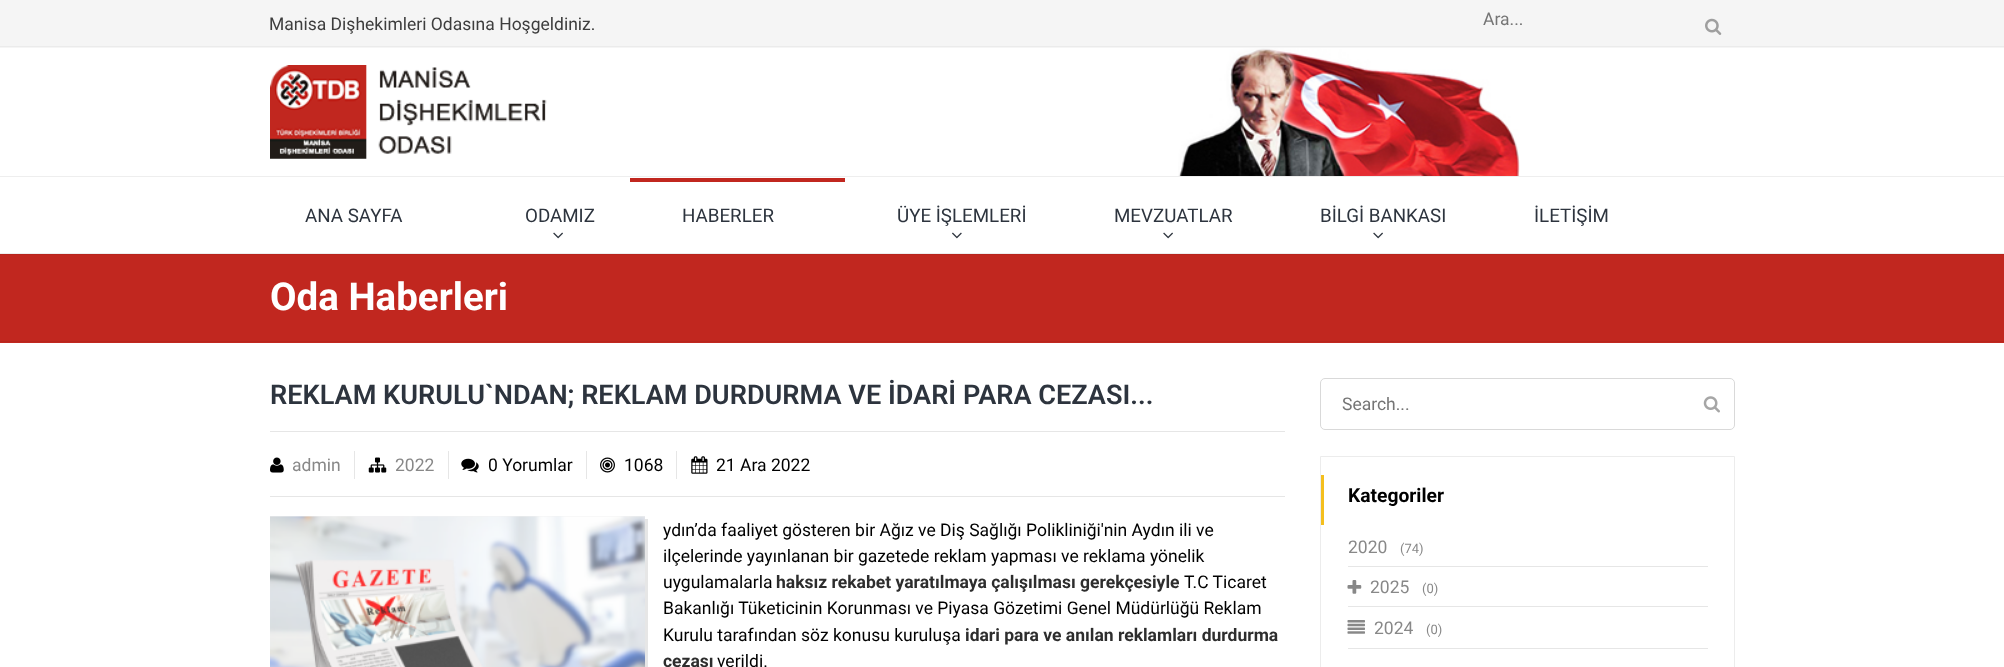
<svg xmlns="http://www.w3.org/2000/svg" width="2004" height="667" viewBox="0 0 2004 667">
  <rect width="100%" height="100%" fill="#fff"/>
  <image x="1178" y="48" width="342" height="128" href="img/1.png"/>
  <path d="M0 0h2004v48H0z" fill="#f5f5f5"/>
  <path d="M0 46h2004v1H0z" fill="#ebebeb"/>
  <image x="1705" y="18" width="17" height="17" href="img/2.png"/>
  <image x="270" y="65" width="277" height="94" href="img/3.png"/>
  <path d="M0 176h2004v1H0z" fill="#eee"/>
  <path d="M0 253h2004v1H0z" fill="#eee"/>
  <image x="553" y="232" width="10" height="7" href="img/4.png"/>
  <path d="M630 178h215v4H630z" fill="#c1271f"/>
  <image x="952" y="232" width="10" height="7" href="img/5.png"/>
  <image x="1163" y="232" width="10" height="7" href="img/4.png"/>
  <image x="1373" y="232" width="10" height="7" href="img/4.png"/>
  <path d="M0 255h2004v88H0z" fill="#c1271f"/>
  <path d="M0 254h2004v1H0z" fill="#b7251d"/>
  <path d="M0 341h2004v1H0z" fill="#b7251d"/>
  <path d="M270 431h1015v1H270z" fill="#e6e6e6"/>
  <image x="270" y="457" width="14" height="16" href="img/6.png"/>
  <path d="M354 451h1v28H354z" fill="#e6e6e6"/>
  <image x="368" y="457" width="19" height="16" href="img/7.png"/>
  <path d="M448 451h1v28H448z" fill="#e6e6e6"/>
  <image x="461" y="458" width="18" height="15" href="img/8.png"/>
  <path d="M586 451h1v28H586z" fill="#e6e6e6"/>
  <image x="600" y="457" width="15" height="16" href="img/9.png"/>
  <path d="M676 451h1v28H676z" fill="#e6e6e6"/>
  <image x="691" y="456" width="17" height="18" href="img/10.png"/>
  <path d="M270 496h1015v1H270z" fill="#e6e6e6"/>
  <path d="M273 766V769H648V519H645V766Z" fill="#e6e6e6"/>
  <path d="M270 516h375v1H270z" fill="#f2f2f2"/>
  <image x="270" y="516" width="375" height="151" href="img/11.png"/>
  <rect x="1320.5" y="378.5" width="414" height="51" rx="4.5" fill="none" stroke="#d9d9d9"/>
  <image x="1703" y="396" width="17" height="17" href="img/12.png"/>
  <path d="M1320.5 456.5h414v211H1320.5z" fill="none" stroke="#ececec"/>
  <path d="M1321 475h3v50H1321z" fill="#f4bf1e"/>
  <path d="M1348 566h360v1H1348z" fill="#e6e6e6"/>
  <path d="M1348 606h360v1H1348z" fill="#e6e6e6"/>
  <image x="1347" y="580" width="15" height="14" href="img/13.png"/>
  <path d="M1348 648h360v1H1348z" fill="#e6e6e6"/>
  <image x="1347" y="620" width="18" height="14" href="img/14.png"/>
  <text x="269" y="30" font-family="Roboto" font-size="17.5" fill="#3d3d3d">Manisa Dişhekimleri Odasına Hoşgeldiniz.</text>
  <text x="1483" y="25" font-family="Roboto" font-size="17.5" fill="#757575">Ara...</text>
  <g font-family="Roboto" font-size="18.75" fill="#2d343e">
    <text x="305" y="222">ANA SAYFA</text>
    <text x="525" y="222">ODAMIZ</text>
    <text x="682" y="222">HABERLER</text>
    <text x="897" y="222">ÜYE İŞLEMLERİ</text>
    <text x="1114" y="222">MEVZUATLAR</text>
    <text x="1320" y="222">BİLGİ BANKASI</text>
    <text x="1534" y="222">İLETİŞİM</text>
  </g>
  <text x="270" y="310" font-family="Roboto" font-size="38.5" font-weight="bold" fill="#fff">Oda Haberleri</text>
  <text x="270" y="404" font-family="Roboto" font-size="27.1" font-weight="600" fill="#2d343e">REKLAM KURULU`NDAN; REKLAM DURDURMA VE İDARİ PARA CEZASI...</text>
  <g font-family="Roboto" font-size="17.5" fill="#888">
    <text x="292" y="471">admin</text>
    <text x="395" y="471">2022</text>
  </g>
  <g font-family="Roboto" font-size="17.5" fill="#000">
    <text x="488" y="471">0 Yorumlar</text>
    <text x="624" y="471">1068</text>
    <text x="716" y="471">21 Ara 2022</text>
    <text x="663" y="536">ydın’da faaliyet gösteren bir Ağız ve Diş Sağlığı Polikliniği'nin Aydın ili ve</text>
    <text x="663" y="562">ilçelerinde yayınlanan bir gazetede reklam yapması ve reklama yönelik</text>
    <text x="663" y="588">uygulamalarla</text>
  </g>
  <text x="776" y="588" font-family="Roboto" font-size="17.5" font-weight="bold" fill="#2d2d2d">haksız rekabet yaratılmaya çalışılması gerekçesiyle</text>
  <g font-family="Roboto" font-size="17.5" fill="#000">
    <text x="1184" y="588">T.C Ticaret</text>
    <text x="663" y="614">Bakanlığı Tüketicinin Korunması ve Piyasa Gözetimi Genel Müdürlüğü Reklam</text>
    <text x="663" y="641">Kurulu tarafından söz konusu kuruluşa</text>
  </g>
  <g font-family="Roboto" font-size="17.5" font-weight="bold" fill="#2d2d2d">
    <text x="965" y="641">idari para ve anılan reklamları durdurma</text>
    <text x="663" y="667">cezası</text>
  </g>
  <text x="717" y="667" font-family="Roboto" font-size="17.5" fill="#000">verildi.</text>
  <text x="1342" y="410" font-family="Roboto" font-size="17.5" fill="#757575">Search...</text>
  <text x="1348" y="502" font-family="Roboto" font-size="19.25" font-weight="bold" fill="#000">Kategoriler</text>
  <text x="1348" y="553" font-family="Roboto" font-size="17.5" fill="#888">2020</text>
  <text x="1400" y="553" font-family="Roboto" font-size="13" fill="#888">(74)</text>
  <text x="1370" y="593" font-family="Roboto" font-size="17.5" fill="#888">2025</text>
  <text x="1422" y="593" font-family="Roboto" font-size="13" fill="#888">(0)</text>
  <text x="1374" y="634" font-family="Roboto" font-size="17.5" fill="#888">2024</text>
  <text x="1426" y="634" font-family="Roboto" font-size="13" fill="#888">(0)</text>
</svg>
